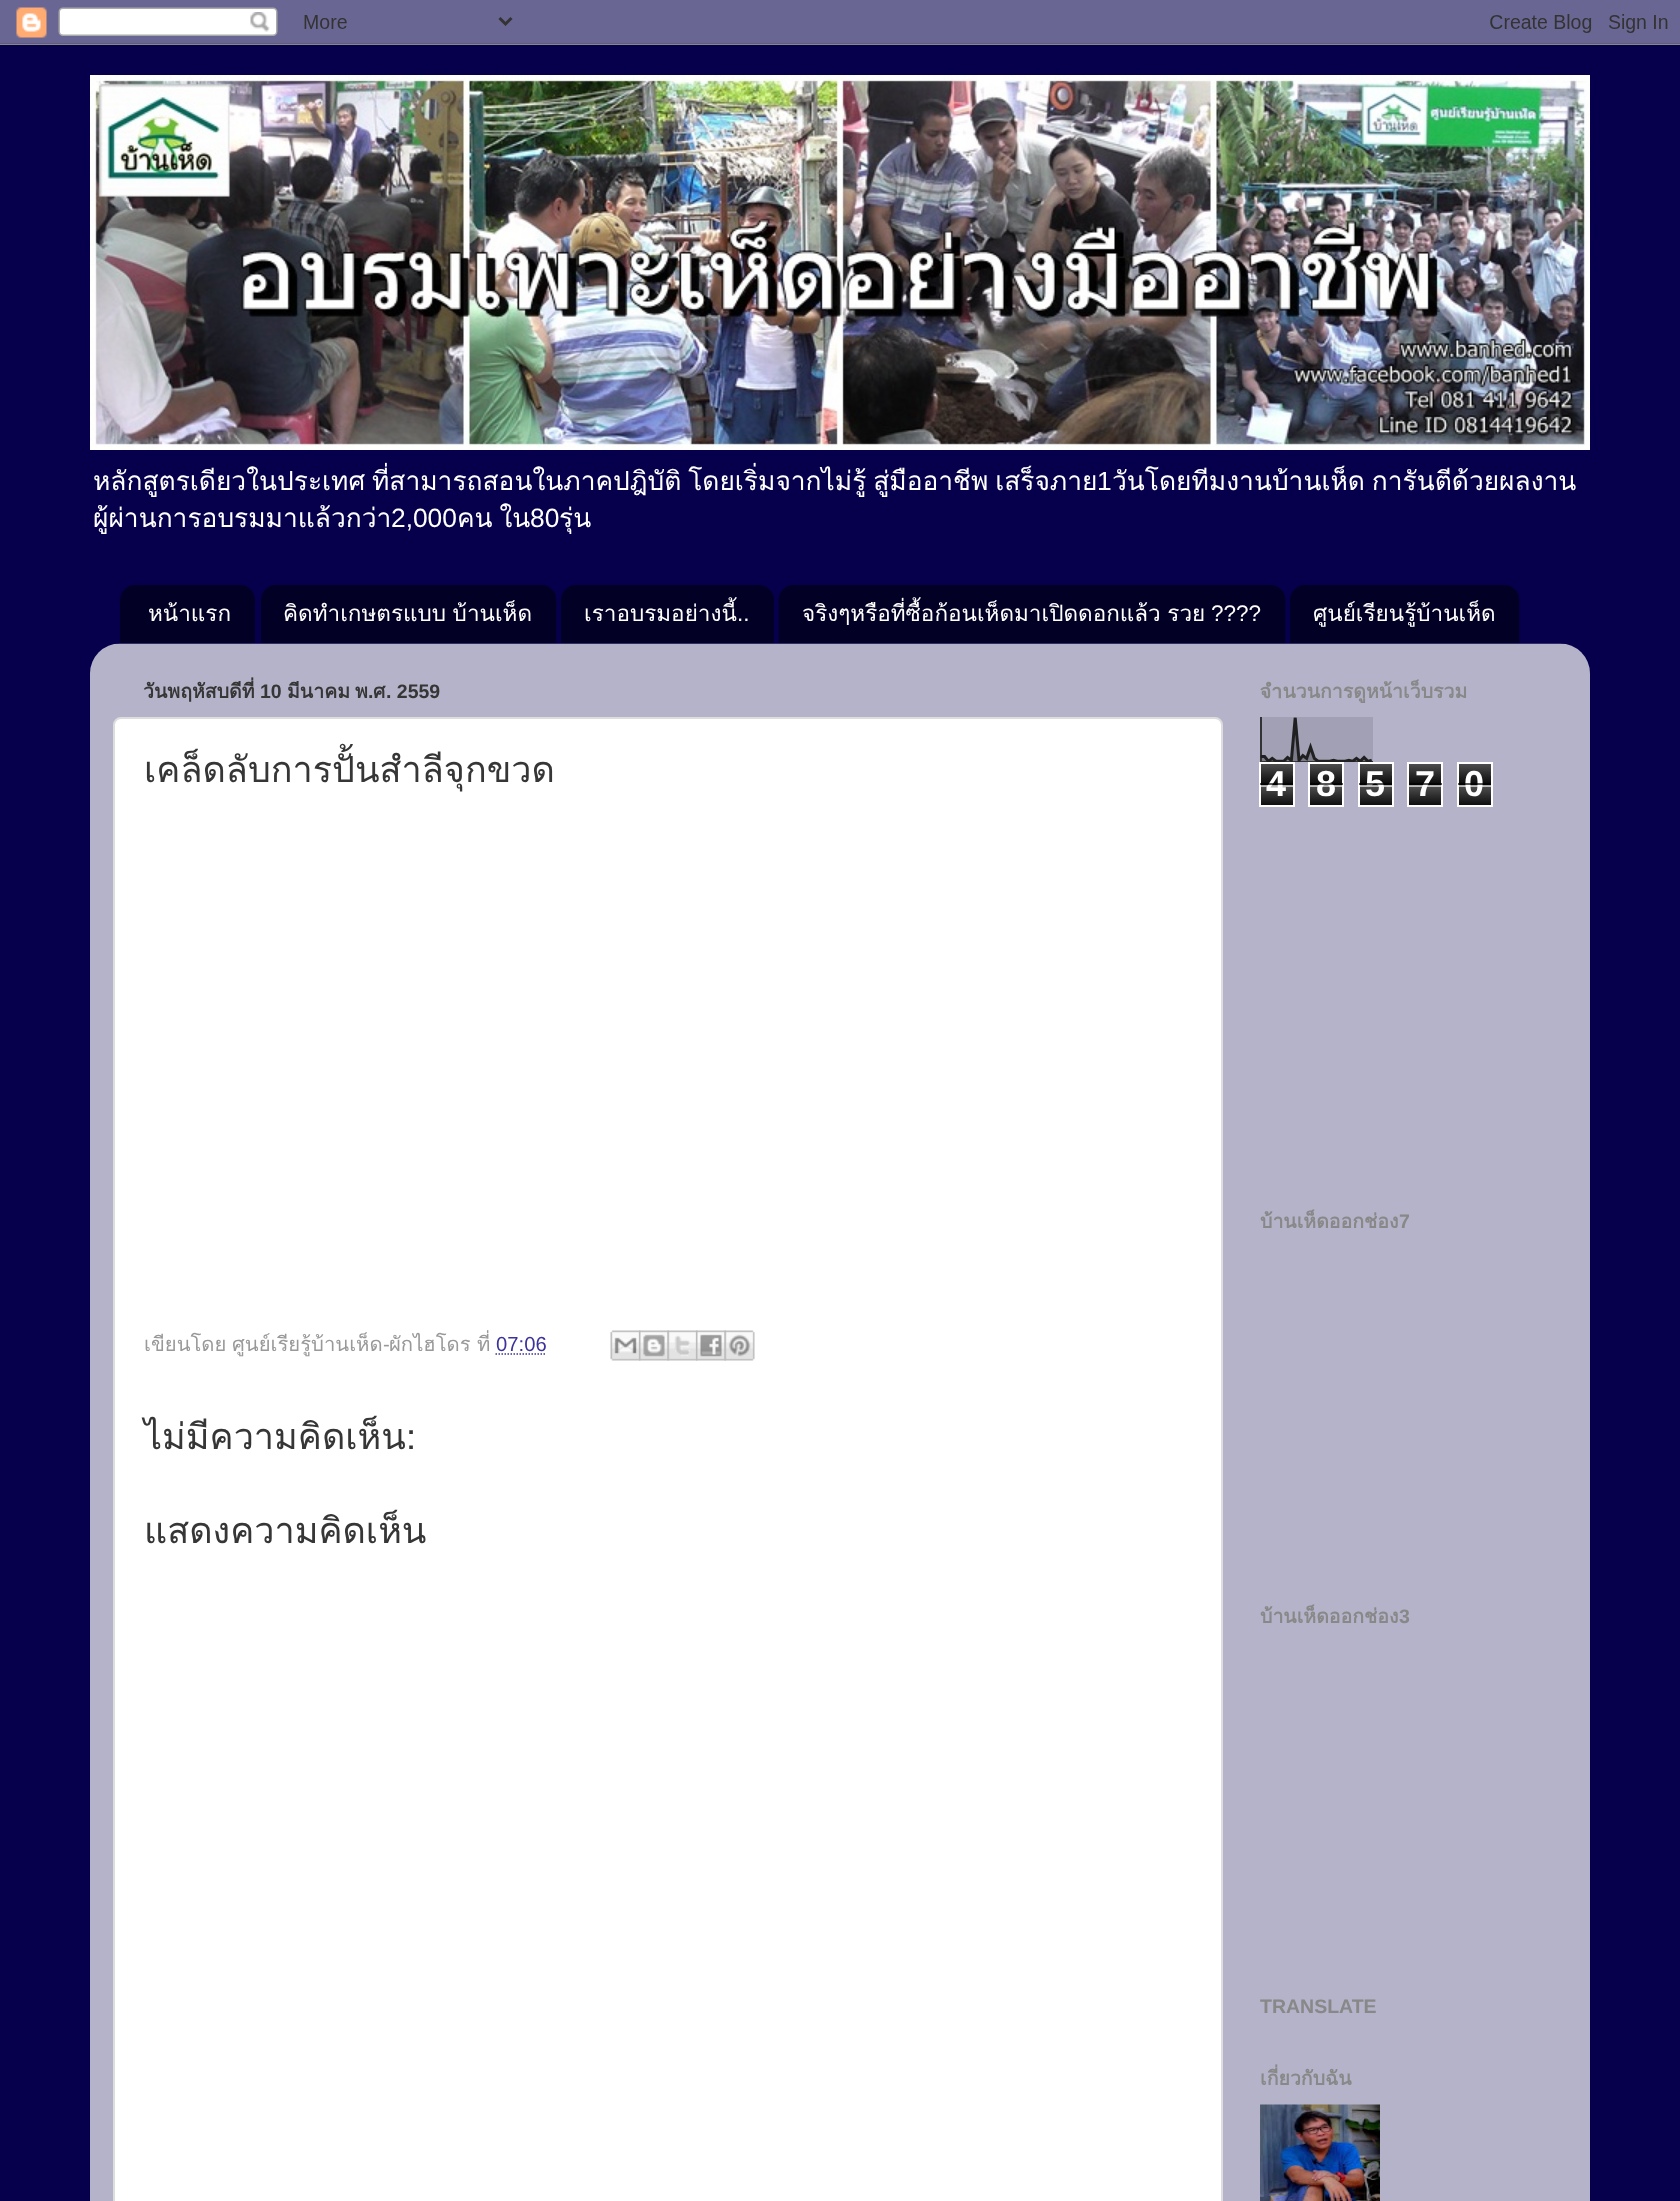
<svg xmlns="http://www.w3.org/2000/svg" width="1680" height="2201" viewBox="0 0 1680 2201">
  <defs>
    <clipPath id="clip1"><path d="M90 75h1500v500H90z"/></clipPath>
  </defs>
  <rect width="100%" height="100%" fill="#06004c"/>
  <image x="0" y="0" width="1680" height="45" href="img/1.png"/>
  <image x="90" y="75" width="1500" height="375" href="img/2.png"/>
  <image x="120" y="585" width="135" height="59" href="img/3.png"/>
  <image x="261" y="585" width="296" height="59" href="img/4.png"/>
  <image x="561" y="585" width="213" height="59" href="img/5.png"/>
  <image x="778" y="585" width="508" height="59" href="img/6.png"/>
  <image x="1290" y="585" width="230" height="59" href="img/7.png"/>
  <image x="90" y="643" width="1500" height="1558" href="img/8.png"/>
  <rect x="114" y="718" width="1108" height="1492" rx="7" fill="#fff" stroke="#ddd" stroke-width="2"/>
  <path d="M495.5 1354H546.5" fill="none" stroke="#3b339a" stroke-width="1.5" stroke-dasharray="1.5 1.5"/>
  <image x="610" y="1330" width="31" height="31" href="img/9.png"/>
  <image x="639" y="1330" width="30" height="31" href="img/10.png"/>
  <image x="667" y="1330" width="31" height="31" href="img/11.png"/>
  <image x="696" y="1330" width="30" height="31" href="img/12.png"/>
  <image x="724" y="1330" width="31" height="31" href="img/13.png"/>
  <image x="1260" y="717" width="113" height="45" href="img/14.png"/>
  <image x="1261" y="764" width="32" height="41" href="img/15.png"/>
  <path d="M1260 763h34v43H1260z" fill="none" stroke="#fff" stroke-width="2"/>
  <image x="1310" y="764" width="32" height="41" href="img/16.png"/>
  <path d="M1309 763h34v43H1309z" fill="none" stroke="#fff" stroke-width="2"/>
  <image x="1360" y="764" width="32" height="41" href="img/15.png"/>
  <path d="M1359 763h34v43H1359z" fill="none" stroke="#fff" stroke-width="2"/>
  <image x="1409" y="764" width="32" height="41" href="img/16.png"/>
  <path d="M1408 763h34v43H1408z" fill="none" stroke="#fff" stroke-width="2"/>
  <image x="1459" y="764" width="32" height="41" href="img/15.png"/>
  <path d="M1458 763h34v43H1458z" fill="none" stroke="#fff" stroke-width="2"/>
  <image x="1260" y="2104" width="120" height="97" href="img/17.png"/>
  <text x="93" y="490" word-spacing="-2" font-family="Loma" font-size="26.35" fill="#fff">หลักสูตรเดียวในประเทศ ที่สามารถสอนในภาคปฎิบัติ โดยเริ่มจากไม่รู้ สู่มืออาชีพ เสร็จภาย</text>
  <text x="1097" y="490" font-family="Liberation Sans" font-size="26.35" fill="#fff">1</text>
  <text x="1112" y="490" word-spacing="-2" font-family="Loma" font-size="26.35" fill="#fff">วันโดยทีมงานบ้านเห็ด การันตีด้วยผลงาน</text>
  <g clip-path="url(#clip1)">
    <text x="93" y="527" font-family="Loma" font-size="26.35" fill="#fff">ผู้ผ่านการอบรมมาแล้วกว่า</text>
  </g>
  <text x="391" y="527" font-family="Liberation Sans" font-size="26.35" fill="#fff">2,000</text>
  <text x="457" y="527" word-spacing="-2" font-family="Loma" font-size="26.35" fill="#fff">คน ใน</text>
  <text x="530" y="527" font-family="Liberation Sans" font-size="26.35" fill="#fff">80</text>
  <text x="559" y="527" font-family="Loma" font-size="26.35" fill="#fff">รุ่น</text>
  <g font-family="Loma" font-size="22.5" fill="#fff">
    <text x="148" y="621">หน้าแรก</text>
    <text x="283" y="621" word-spacing="-1">คิดทำเกษตรแบบ บ้านเห็ด</text>
    <text x="584" y="621">เราอบรมอย่างนี้</text>
  </g>
  <text x="737" y="621" font-family="Liberation Sans" font-size="22.5" fill="#fff">..</text>
  <text x="802" y="621" word-spacing="-1" font-family="Loma" font-size="22.5" fill="#fff">จริงๆหรือที่ซื้อก้อนเห็ดมาเปิดดอกแล้ว รวย</text>
  <text x="1211" y="621" font-family="Liberation Sans" font-size="22.5" fill="#fff">????</text>
  <text x="1313" y="621" font-family="Loma" font-size="22.5" fill="#fff">ศูนย์เรียนรู้บ้านเห็ด</text>
  <text x="143" y="698" font-family="Loma" font-size="19.5" font-weight="bold" fill="#363636">วันพฤหัสบดีที่</text>
  <text x="260" y="698" font-family="Liberation Sans" font-size="19.5" font-weight="bold" fill="#363636">10</text>
  <g font-family="Loma" font-size="19.5" font-weight="bold" fill="#363636">
    <text x="287" y="698">มีนาคม</text>
    <text x="355" y="698">พ</text>
  </g>
  <text x="368" y="698" font-family="Liberation Sans" font-size="19.5" font-weight="bold" fill="#363636">.</text>
  <text x="373" y="698" font-family="Loma" font-size="19.5" font-weight="bold" fill="#363636">ศ</text>
  <text x="386" y="698" font-family="Liberation Sans" font-size="19.5" font-weight="bold" fill="#363636">. 2559</text>
  <text x="144" y="782" font-family="Loma" font-size="36" fill="#363636">เคล็ดลับการปั้นสำลีจุกขวด</text>
  <g font-family="Loma" font-size="20.25" fill="#999">
    <text x="144" y="1351">เขียนโดย</text>
    <text x="232" y="1351">ศูนย์เรียรู้บ้านเห็ด</text>
  </g>
  <text x="496" y="1351" font-family="Liberation Sans" font-size="20.25" fill="#3b339a">07:06</text>
  <text x="383" y="1351" font-family="Liberation Sans" font-size="20.25" fill="#999">-</text>
  <g font-family="Loma" font-size="20.25" fill="#999">
    <text x="389" y="1351">ผักไฮโดร</text>
    <text x="477" y="1351">ที่</text>
  </g>
  <g font-family="Loma" font-size="36" fill="#363636">
    <text x="144" y="1449">ไม่มีความคิดเห็น:</text>
    <text x="144" y="1543">แสดงความคิดเห็น</text>
  </g>
  <text x="1260" y="698" font-family="Loma" font-size="19.5" font-weight="bold" fill="#888">จำนวนการดูหน้าเว็บรวม</text>
  <text x="1266" y="796" font-family="Liberation Sans" font-size="36" font-weight="bold" fill="#fff">4</text>
  <path d="M1260 783h33v2H1260z" fill="#000000a6"/>
  <path d="M1260 785h33v2H1260z" fill="#ffffffa6"/>
  <text x="1316" y="796" font-family="Liberation Sans" font-size="36" font-weight="bold" fill="#fff">8</text>
  <path d="M1310 783h33v2H1310z" fill="#000000a6"/>
  <path d="M1310 785h33v2H1310z" fill="#ffffffa6"/>
  <text x="1365" y="796" font-family="Liberation Sans" font-size="36" font-weight="bold" fill="#fff">5</text>
  <path d="M1359 783h33v2H1359z" fill="#000000a6"/>
  <path d="M1359 785h33v2H1359z" fill="#ffffffa6"/>
  <text x="1415" y="796" font-family="Liberation Sans" font-size="36" font-weight="bold" fill="#fff">7</text>
  <path d="M1409 783h33v2H1409z" fill="#000000a6"/>
  <path d="M1409 785h33v2H1409z" fill="#ffffffa6"/>
  <text x="1464" y="796" font-family="Liberation Sans" font-size="36" font-weight="bold" fill="#fff">0</text>
  <path d="M1458 783h33v2H1458z" fill="#000000a6"/>
  <path d="M1458 785h33v2H1458z" fill="#ffffffa6"/>
  <text x="1260" y="1228" font-family="Loma" font-size="19.5" font-weight="bold" fill="#888">บ้านเห็ดออกช่อง</text>
  <text x="1399" y="1228" font-family="Liberation Sans" font-size="19.5" font-weight="bold" fill="#888">7</text>
  <text x="1260" y="1623" font-family="Loma" font-size="19.5" font-weight="bold" fill="#888">บ้านเห็ดออกช่อง</text>
  <g font-family="Liberation Sans" font-size="19.5" font-weight="bold" fill="#888">
    <text x="1399" y="1623">3</text>
    <text x="1260" y="2013">TRANSLATE</text>
  </g>
  <text x="1260" y="2085" font-family="Loma" font-size="19.5" font-weight="bold" fill="#888">เกี่ยวกับฉัน</text>
</svg>
